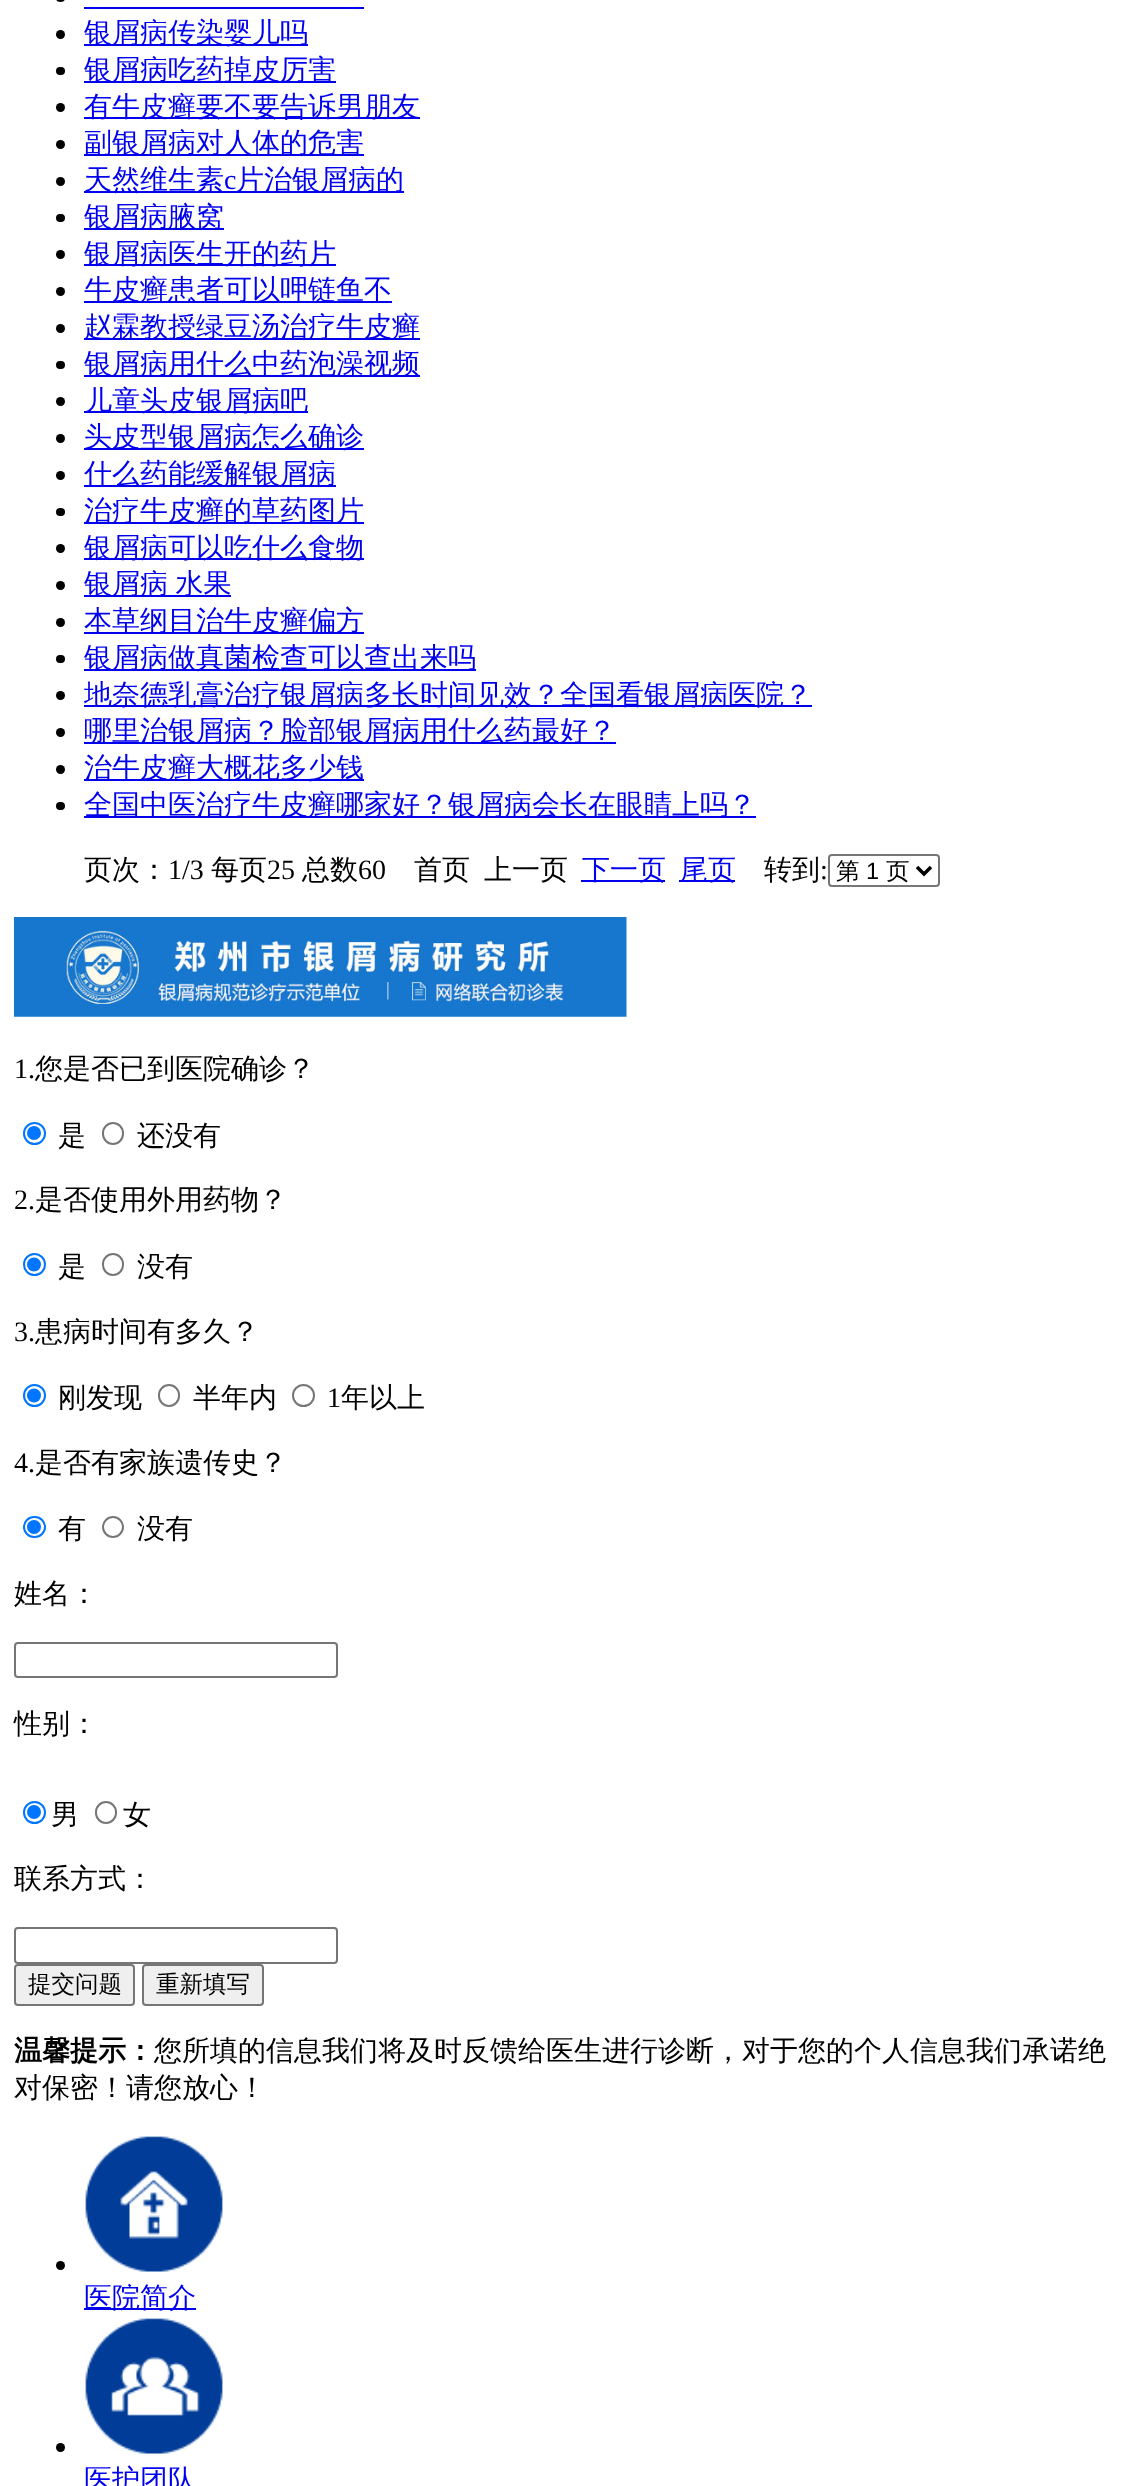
<svg xmlns="http://www.w3.org/2000/svg" width="1133" height="2486" viewBox="0 0 1133 2486">
  <rect width="100%" height="100%" fill="#fff"/>
  <rect x="56" y="-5" width="9" height="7" rx="4.5" fill="#000"/>
  <path d="M84 7h280v2H84z" fill="#00e"/>
  <circle cx="60.5" cy="34.5" r="4.5" fill="#000"/>
  <path d="M84 44h224v2H84z" fill="#00e"/>
  <rect x="56" y="67" width="9" height="8" rx="4" fill="#000"/>
  <path d="M84 81h252v2H84z" fill="#00e"/>
  <circle cx="60.5" cy="107.5" r="4.5" fill="#000"/>
  <path d="M84 117h336v2H84z" fill="#00e"/>
  <circle cx="60.5" cy="144.5" r="4.5" fill="#000"/>
  <path d="M84 154h280v2H84z" fill="#00e"/>
  <circle cx="60.5" cy="181.5" r="4.5" fill="#000"/>
  <path d="M84 191h320v2H84z" fill="#00e"/>
  <rect x="56" y="214" width="9" height="8" rx="4" fill="#000"/>
  <path d="M84 228h140v2H84z" fill="#00e"/>
  <circle cx="60.5" cy="254.5" r="4.5" fill="#000"/>
  <path d="M84 264h252v2H84z" fill="#00e"/>
  <circle cx="60.5" cy="291.5" r="4.5" fill="#000"/>
  <path d="M84 301h308v2H84z" fill="#00e"/>
  <circle cx="60.5" cy="328.5" r="4.5" fill="#000"/>
  <path d="M84 338h336v2H84z" fill="#00e"/>
  <rect x="56" y="361" width="9" height="8" rx="4" fill="#000"/>
  <path d="M84 375h336v2H84z" fill="#00e"/>
  <circle cx="60.5" cy="401.5" r="4.5" fill="#000"/>
  <path d="M84 411h224v2H84z" fill="#00e"/>
  <circle cx="60.5" cy="438.5" r="4.5" fill="#000"/>
  <path d="M84 448h280v2H84z" fill="#00e"/>
  <circle cx="60.5" cy="475.5" r="4.5" fill="#000"/>
  <path d="M84 485h252v2H84z" fill="#00e"/>
  <rect x="56" y="508" width="9" height="8" rx="4" fill="#000"/>
  <path d="M84 522h280v2H84z" fill="#00e"/>
  <circle cx="60.5" cy="548.5" r="4.5" fill="#000"/>
  <path d="M84 558h280v2H84z" fill="#00e"/>
  <circle cx="60.5" cy="585.5" r="4.5" fill="#000"/>
  <path d="M84 595h147v2H84z" fill="#00e"/>
  <circle cx="60.5" cy="622.5" r="4.5" fill="#000"/>
  <path d="M84 632h280v2H84z" fill="#00e"/>
  <rect x="56" y="655" width="9" height="8" rx="4" fill="#000"/>
  <path d="M84 669h392v2H84z" fill="#00e"/>
  <circle cx="60.5" cy="695.5" r="4.5" fill="#000"/>
  <path d="M84 705h728v2H84z" fill="#00e"/>
  <circle cx="60.5" cy="732.5" r="4.5" fill="#000"/>
  <path d="M84 742h532v2H84z" fill="#00e"/>
  <circle cx="60.5" cy="769.5" r="4.5" fill="#000"/>
  <path d="M84 779h280v2H84z" fill="#00e"/>
  <rect x="56" y="802" width="9" height="8" rx="4" fill="#000"/>
  <path d="M84 816h672v2H84z" fill="#00e"/>
  <path d="M581 880h84v2H581z" fill="#00e"/>
  <path d="M679 880h56v2H679z" fill="#00e"/>
  <rect x="829" y="855" width="110" height="31" rx="3" fill="none" stroke="#767676" stroke-width="2"/>
  <path d="M917 867L924 874L931 867" fill="none" stroke="#000" stroke-width="3.5"/>
  <image x="14" y="917" width="613" height="100" href="img/1.png"/>
  <circle cx="34.5" cy="1133.5" r="10.5" fill="none" stroke="#0075ff" stroke-width="2"/>
  <circle cx="34" cy="1133" r="7" fill="#0075ff"/>
  <rect x="103" y="1123" width="20" height="21" rx="10" fill="none" stroke="#767676" stroke-width="2"/>
  <circle cx="34.5" cy="1264.5" r="10.5" fill="none" stroke="#0075ff" stroke-width="2"/>
  <circle cx="34" cy="1264.5" r="7" fill="#0075ff"/>
  <rect x="103" y="1254" width="20" height="21" rx="10" fill="none" stroke="#767676" stroke-width="2"/>
  <circle cx="34.5" cy="1395.5" r="10.5" fill="none" stroke="#0075ff" stroke-width="2"/>
  <circle cx="34" cy="1395.5" r="7" fill="#0075ff"/>
  <rect x="159" y="1385" width="20" height="21" rx="10" fill="none" stroke="#767676" stroke-width="2"/>
  <circle cx="303.5" cy="1395.5" r="10.5" fill="none" stroke="#767676" stroke-width="2"/>
  <rect x="24" y="1517" width="21" height="20" rx="10" fill="none" stroke="#0075ff" stroke-width="2"/>
  <circle cx="34" cy="1527" r="7" fill="#0075ff"/>
  <circle cx="113" cy="1527" r="10" fill="none" stroke="#767676" stroke-width="2"/>
  <rect x="15" y="1643" width="322" height="34" rx="3" fill="none" stroke="#767676" stroke-width="2"/>
  <circle cx="34.5" cy="1812.5" r="10.5" fill="none" stroke="#0075ff" stroke-width="2"/>
  <circle cx="34" cy="1812" r="7" fill="#0075ff"/>
  <rect x="96" y="1802" width="20" height="21" rx="10" fill="none" stroke="#767676" stroke-width="2"/>
  <rect x="15" y="1928" width="322" height="35" rx="3" fill="none" stroke="#767676" stroke-width="2"/>
  <rect x="15" y="1965" width="119" height="40" rx="3" fill="#efefef" stroke="#767676" stroke-width="2"/>
  <rect x="143" y="1965" width="120" height="40" rx="3" fill="#efefef" stroke="#767676" stroke-width="2"/>
  <circle cx="60.5" cy="2265.5" r="4.5" fill="#000"/>
  <image x="85" y="2136" width="138" height="136" href="img/2.png"/>
  <path d="M84 2308h112v2H84z" fill="#00e"/>
  <circle cx="60.5" cy="2447.5" r="4.5" fill="#000"/>
  <image x="85" y="2318" width="138" height="136" href="img/3.png"/>
  <g font-family="WenQuanYi Zen Hei" font-size="28" font-weight="500" fill="#00e">
    <text x="84" y="42">银屑病传染婴儿吗</text>
    <text x="84" y="79">银屑病吃药掉皮厉害</text>
    <text x="84" y="116">有牛皮癣要不要告诉男朋友</text>
    <text x="84" y="152">副银屑病对人体的危害</text>
    <text x="84" y="189">天然维生素</text>
  </g>
  <text x="224" y="189" font-family="Liberation Serif" font-size="28" fill="#00e">c</text>
  <g font-family="WenQuanYi Zen Hei" font-size="28" font-weight="500" fill="#00e">
    <text x="236" y="189">片治银屑病的</text>
    <text x="84" y="226">银屑病腋窝</text>
    <text x="84" y="263">银屑病医生开的药片</text>
    <text x="84" y="299">牛皮癣患者可以呷链鱼不</text>
    <text x="84" y="336">赵霖教授绿豆汤治疗牛皮癣</text>
    <text x="84" y="373">银屑病用什么中药泡澡视频</text>
    <text x="84" y="410">儿童头皮银屑病吧</text>
    <text x="84" y="446">头皮型银屑病怎么确诊</text>
    <text x="84" y="483">什么药能缓解银屑病</text>
    <text x="84" y="520">治疗牛皮癣的草药图片</text>
    <text x="84" y="557">银屑病可以吃什么食物</text>
    <text x="84" y="593" word-spacing="-1">银屑病 水果</text>
    <text x="84" y="630">本草纲目治牛皮癣偏方</text>
    <text x="84" y="667">银屑病做真菌检查可以查出来吗</text>
    <text x="84" y="704">地奈德乳膏治疗银屑病多长时间见效？全国看银屑病医院？</text>
    <text x="84" y="740">哪里治银屑病？脸部银屑病用什么药最好？</text>
    <text x="84" y="777">治牛皮癣大概花多少钱</text>
    <text x="84" y="814">全国中医治疗牛皮癣哪家好？银屑病会长在眼睛上吗？</text>
  </g>
  <text x="84" y="879" font-family="WenQuanYi Zen Hei" font-size="28" font-weight="500" fill="#000">页次：</text>
  <text x="168" y="879" font-family="Liberation Serif" font-size="28" fill="#000">1/3</text>
  <text x="211" y="879" font-family="WenQuanYi Zen Hei" font-size="28" font-weight="500" fill="#000">每页</text>
  <text x="267" y="879" font-family="Liberation Serif" font-size="28" fill="#000">25</text>
  <text x="302" y="879" font-family="WenQuanYi Zen Hei" font-size="28" font-weight="500" fill="#000">总数</text>
  <text x="358" y="879" font-family="Liberation Serif" font-size="28" fill="#000">60</text>
  <g font-family="WenQuanYi Zen Hei" font-size="28" font-weight="500" fill="#000">
    <text x="414" y="879">首页</text>
    <text x="484" y="879">上一页</text>
  </g>
  <g font-family="WenQuanYi Zen Hei" font-size="28" font-weight="500" fill="#00e">
    <text x="582" y="879">下一页</text>
    <text x="680" y="879">尾页</text>
  </g>
  <text x="764" y="879" font-family="WenQuanYi Zen Hei" font-size="28" font-weight="500" fill="#000">转到</text>
  <text x="820" y="879" font-family="Liberation Serif" font-size="28" fill="#000">:</text>
  <text x="836" y="879" font-family="WenQuanYi Zen Hei" font-size="23.5" font-weight="500" fill="#000">第</text>
  <text x="866" y="879" font-family="Liberation Sans" font-size="23.5" fill="#000">1</text>
  <text x="886" y="879" font-family="WenQuanYi Zen Hei" font-size="23.5" font-weight="500" fill="#000">页</text>
  <text x="14" y="1078" font-family="Liberation Serif" font-size="28" fill="#000">1.</text>
  <g font-family="WenQuanYi Zen Hei" font-size="28" font-weight="500" fill="#000">
    <text x="35" y="1078">您是否已到医院确诊？</text>
    <text x="58" y="1145">是</text>
    <text x="137" y="1145">还没有</text>
  </g>
  <text x="14" y="1209" font-family="Liberation Serif" font-size="28" fill="#000">2.</text>
  <g font-family="WenQuanYi Zen Hei" font-size="28" font-weight="500" fill="#000">
    <text x="35" y="1209">是否使用外用药物？</text>
    <text x="58" y="1276">是</text>
    <text x="137" y="1276">没有</text>
  </g>
  <text x="14" y="1341" font-family="Liberation Serif" font-size="28" fill="#000">3.</text>
  <g font-family="WenQuanYi Zen Hei" font-size="28" font-weight="500" fill="#000">
    <text x="35" y="1341">患病时间有多久？</text>
    <text x="58" y="1407">刚发现</text>
    <text x="193" y="1407">半年内</text>
  </g>
  <text x="327" y="1407" font-family="Liberation Serif" font-size="28" fill="#000">1</text>
  <text x="341" y="1407" font-family="WenQuanYi Zen Hei" font-size="28" font-weight="500" fill="#000">年以上</text>
  <text x="14" y="1472" font-family="Liberation Serif" font-size="28" fill="#000">4.</text>
  <g font-family="WenQuanYi Zen Hei" font-size="28" font-weight="500" fill="#000">
    <text x="35" y="1472">是否有家族遗传史？</text>
    <text x="58" y="1538">有</text>
    <text x="137" y="1538">没有</text>
    <text x="14" y="1603">姓名：</text>
    <text x="14" y="1733">性别：</text>
    <text x="51" y="1824">男</text>
    <text x="123" y="1824">女</text>
    <text x="14" y="1888">联系方式：</text>
  </g>
  <g font-family="WenQuanYi Zen Hei" font-size="23.5" font-weight="500" fill="#000">
    <text x="28" y="1992">提交问题</text>
    <text x="156" y="1992">重新填写</text>
  </g>
  <text x="14" y="2060" font-family="WenQuanYi Zen Hei" font-size="28" font-weight="bold" fill="#000">温馨提示：</text>
  <g font-family="WenQuanYi Zen Hei" font-size="28" font-weight="500" fill="#000">
    <text x="154" y="2060">您所填的信息我们将及时反馈给医生进行诊断，对于您的个人信息我们承诺绝</text>
    <text x="14" y="2097">对保密！请您放心！</text>
  </g>
  <g font-family="WenQuanYi Zen Hei" font-size="28" font-weight="500" fill="#00e">
    <text x="84" y="2307">医院简介</text>
    <text x="84" y="2489">医护团队</text>
  </g>
</svg>
